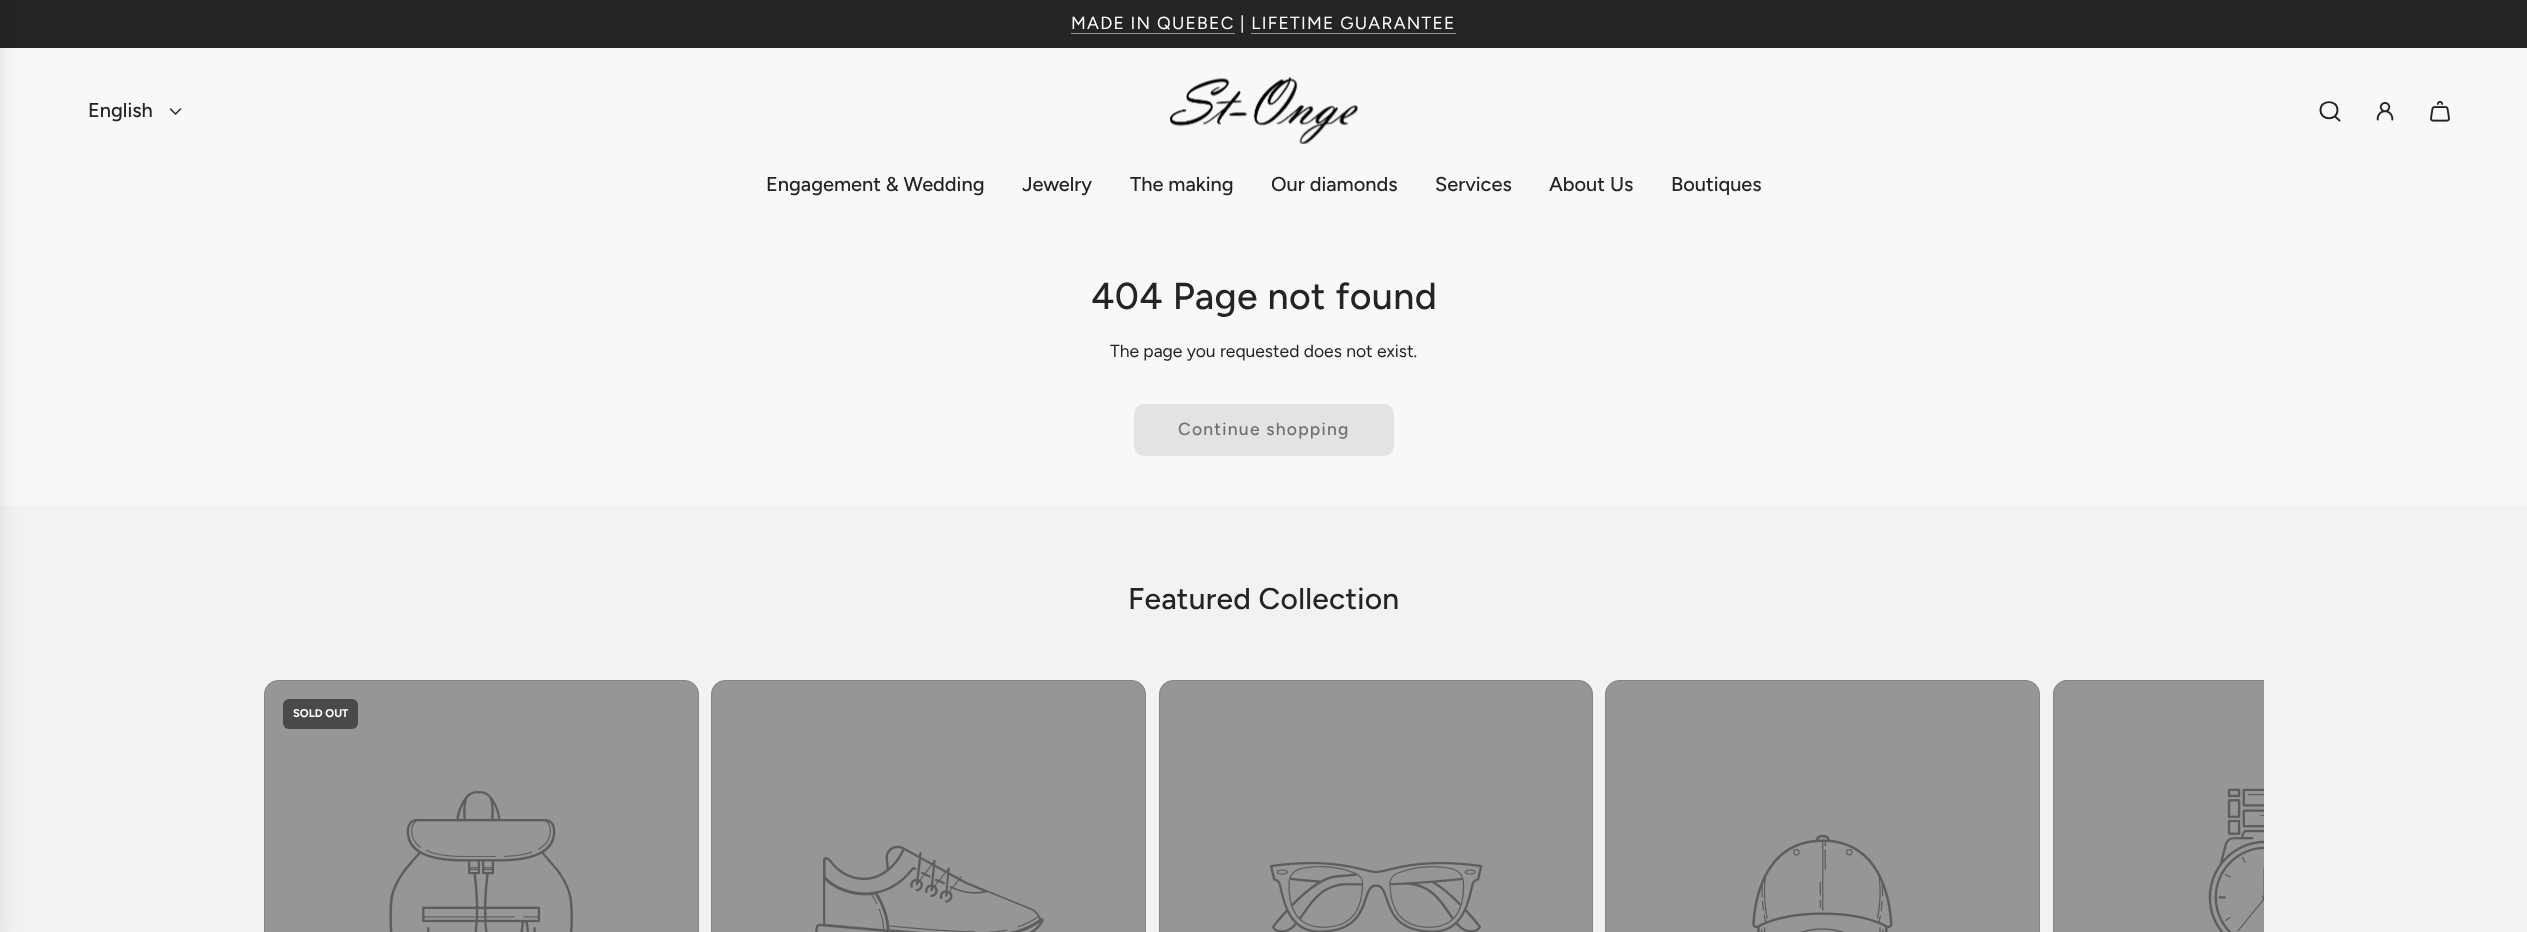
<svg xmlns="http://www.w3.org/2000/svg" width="2527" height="932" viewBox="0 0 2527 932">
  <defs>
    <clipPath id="clip1"><path d="M2053 680h211v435H2053z"/></clipPath>
  </defs>
  <rect width="100%" height="100%" fill="#faf8f7"/>
  <path d="M0 0h2527v48H0z" fill="#242424"/>
  <path d="M1071 33h164v1H1071z" fill="#929292"/>
  <path d="M1251 33h205v1H1251z" fill="#929292"/>
  <path d="M0 506h2527v426H0z" fill="#f1f2f3"/>
  <path d="M-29 6h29v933H-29z" fill="#0000001a" filter="blur(9.5px)"/>
  <path d="M170.5 109L175.5 114L180.5 109" fill="none" stroke="#242424" stroke-width="1.5" stroke-linecap="round" stroke-linejoin="round"/>
  <image x="1170" y="77" width="188" height="67" href="img/1.png"/>
  <path d="M2335 116.5L2339.5 120.5M2320.5 110C2320.5 121 2337.5 121 2337.5 110C2337.5 99.5 2320.5 99.5 2320.5 110Z" fill="none" stroke="#242424" stroke-width="1.9" stroke-linecap="round" stroke-linejoin="round"/>
  <image x="2376" y="102" width="18" height="19" href="img/2.png"/>
  <image x="2430" y="101" width="20" height="21" href="img/3.png"/>
  <rect x="1134" y="404" width="260" height="52" rx="10" fill="#e3e3e3"/>
  <rect x="264.5" y="680.5" width="434" height="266" rx="13.5" fill="#969696" stroke="#858585"/>
  <image x="389" y="791" width="184" height="141" href="img/4.png"/>
  <rect x="283" y="699" width="75" height="30" rx="6" fill="#494949"/>
  <rect x="711.5" y="680.5" width="434" height="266" rx="13.5" fill="#969696" stroke="#858585"/>
  <image x="815" y="845" width="229" height="87" href="img/5.png"/>
  <rect x="1159.5" y="680.5" width="433" height="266" rx="13.5" fill="#969696" stroke="#858585"/>
  <image x="1270" y="862" width="213" height="70" href="img/6.png"/>
  <rect x="1605.5" y="680.5" width="434" height="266" rx="13.5" fill="#969696" stroke="#858585"/>
  <image x="1752" y="834" width="141" height="98" href="img/7.png"/>
  <path d="M2067 680H2264V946H2067C2059.5 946 2053 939.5 2053 932V694C2053 686.5 2059.5 680 2067 680Z" fill="#969696"/>
  <g clip-path="url(#clip1)">
    <rect x="2053.5" y="680.5" width="434" height="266" rx="13.5" fill="none" stroke="#858585"/>
  </g>
  <image x="2208" y="788" width="56" height="144" href="img/8.png"/>
  <g font-family="Figtree" font-size="17.5" letter-spacing="1.25" fill="#fff">
    <text x="1071" y="29">MADE IN QUEBEC</text>
    <text x="1240" y="29">| LIFETIME GUARANTEE</text>
  </g>
  <g font-family="Figtree" font-size="20" font-weight="500" fill="#242424">
    <text x="88" y="117">English</text>
    <text x="766" y="191">Engagement &amp; Wedding</text>
    <text x="1022" y="191">Jewelry</text>
    <text x="1130" y="191">The making</text>
    <text x="1271" y="191">Our diamonds</text>
    <text x="1435" y="191">Services</text>
    <text x="1549" y="191">About Us</text>
    <text x="1671" y="191">Boutiques</text>
  </g>
  <text x="1091" y="309" font-family="Figtree" font-size="37.5" font-weight="500" letter-spacing="0.4" fill="#242424">404 Page not found</text>
  <text x="1110" y="357" font-family="Figtree" font-size="17.5" fill="#242424">The page you requested does not exist.</text>
  <text x="1178" y="435" font-family="Figtree" font-size="17.5" font-weight="500" letter-spacing="1.25" fill="#6f6f6f">Continue shopping</text>
  <text x="1128" y="609" font-family="Figtree" font-size="30" font-weight="500" letter-spacing="0.25" fill="#242424">Featured Collection</text>
  <text x="293" y="717" font-family="Figtree" font-size="11.25" font-weight="bold" fill="#fff">SOLD OUT</text>
</svg>
